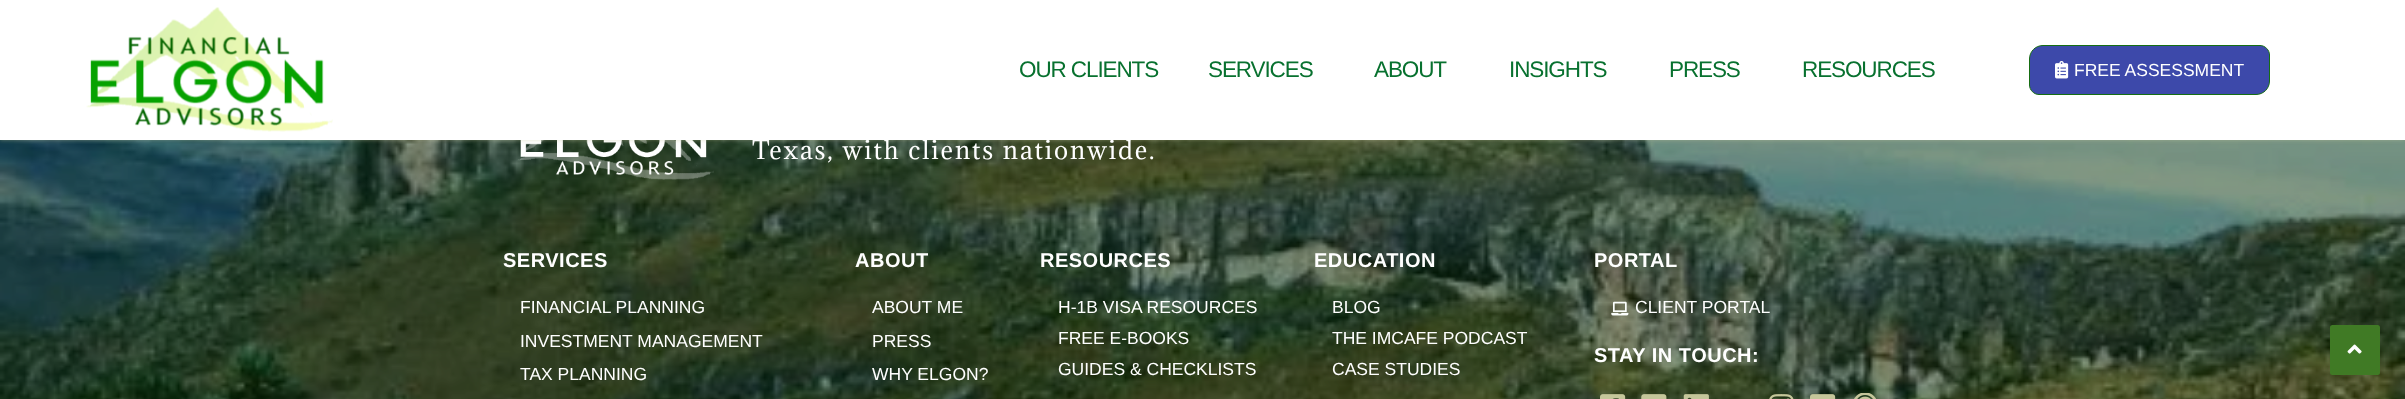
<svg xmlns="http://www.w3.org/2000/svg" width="2405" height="399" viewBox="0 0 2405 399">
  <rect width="100%" height="100%" fill="#fff"/>
  <image x="0" y="140" width="2405" height="259" href="img/3.png"/>
  <image x="517" y="140" width="197" height="40" href="img/4.png"/>
  <path d="M0 0h2405v140H0z" fill="#c5c69a7d" filter="blur(2px)"/>
  <path d="M0 0h2405v140H0z" fill="#fff"/>
  <image x="86" y="7" width="247" height="125" href="img/1.png"/>
  <path d="M2043 45.5H2260C2265 45.5 2269.5 50 2269.5 55V81C2269.5 88.5 2263.5 94.5 2256 94.5H2039C2034 94.5 2029.5 90 2029.5 85V59C2029.5 51.5 2035.5 45.5 2043 45.5Z" fill="#3d49aa" stroke="#166e12"/>
  <image x="2055" y="61" width="14" height="18" href="img/2.png"/>
  <image x="1611" y="301" width="18" height="15" href="img/5.png"/>
  <image x="1600" y="394" width="26" height="5" href="img/6.png"/>
  <image x="1641" y="394" width="26" height="5" href="img/7.png"/>
  <image x="1683" y="394" width="26" height="5" href="img/8.png"/>
  <image x="1769" y="394" width="25" height="5" href="img/9.png"/>
  <image x="1810" y="394" width="26" height="5" href="img/10.png"/>
  <image x="1854" y="393" width="22" height="6" href="img/11.png"/>
  <rect x="2330" y="325" width="50" height="50" rx="2.5" fill="#407a25"/>
  <image x="2347" y="344" width="15" height="10" href="img/12.png"/>
  <g font-family="Liberation Sans" font-size="22.5" letter-spacing="-1.1" fill="#08712f">
    <text x="1019" y="77">OUR CLIENTS</text>
    <text x="1208" y="77">SERVICES</text>
    <text x="1374" y="77">ABOUT</text>
    <text x="1509" y="77">INSIGHTS</text>
    <text x="1669" y="77">PRESS</text>
    <text x="1802" y="77">RESOURCES</text>
  </g>
  <text x="2074" y="76" font-family="Liberation Sans" font-size="17.5" fill="#fff">FREE ASSESSMENT</text>
  <text x="752" y="159" font-family="Adamina" font-size="23.75" letter-spacing="1.9" fill="#fff">Texas, with clients nationwide.</text>
  <text x="503" y="267" font-family="Liberation Sans" font-size="20" font-weight="bold" letter-spacing="0.5" fill="#fff">SERVICES</text>
  <g font-family="Liberation Sans" font-size="17.5" fill="#fff">
    <text x="520" y="313">FINANCIAL PLANNING</text>
    <text x="520" y="347">INVESTMENT MANAGEMENT</text>
    <text x="520" y="380">TAX PLANNING</text>
  </g>
  <text x="855" y="267" font-family="Liberation Sans" font-size="20" font-weight="bold" letter-spacing="0.5" fill="#fff">ABOUT</text>
  <g font-family="Liberation Sans" font-size="17.5" fill="#fff">
    <text x="872" y="313">ABOUT ME</text>
    <text x="872" y="347">PRESS</text>
    <text x="872" y="380">WHY ELGON?</text>
  </g>
  <text x="1040" y="267" font-family="Liberation Sans" font-size="20" font-weight="bold" letter-spacing="0.5" fill="#fff">RESOURCES</text>
  <g font-family="Liberation Sans" font-size="17.5" fill="#fff">
    <text x="1058" y="313">H-1B VISA RESOURCES</text>
    <text x="1058" y="344">FREE E-BOOKS</text>
    <text x="1058" y="375">GUIDES &amp; CHECKLISTS</text>
  </g>
  <text x="1314" y="267" font-family="Liberation Sans" font-size="20" font-weight="bold" letter-spacing="0.5" fill="#fff">EDUCATION</text>
  <g font-family="Liberation Sans" font-size="17.5" fill="#fff">
    <text x="1332" y="313">BLOG</text>
    <text x="1332" y="344">THE IMCAFE PODCAST</text>
    <text x="1332" y="375">CASE STUDIES</text>
  </g>
  <text x="1594" y="267" font-family="Liberation Sans" font-size="20" font-weight="bold" letter-spacing="0.5" fill="#fff">PORTAL</text>
  <text x="1635" y="313" font-family="Liberation Sans" font-size="17.5" fill="#fff">CLIENT PORTAL</text>
  <text x="1594" y="362" font-family="Liberation Sans" font-size="20" font-weight="bold" letter-spacing="0.5" fill="#fff">STAY IN TOUCH:</text>
</svg>
